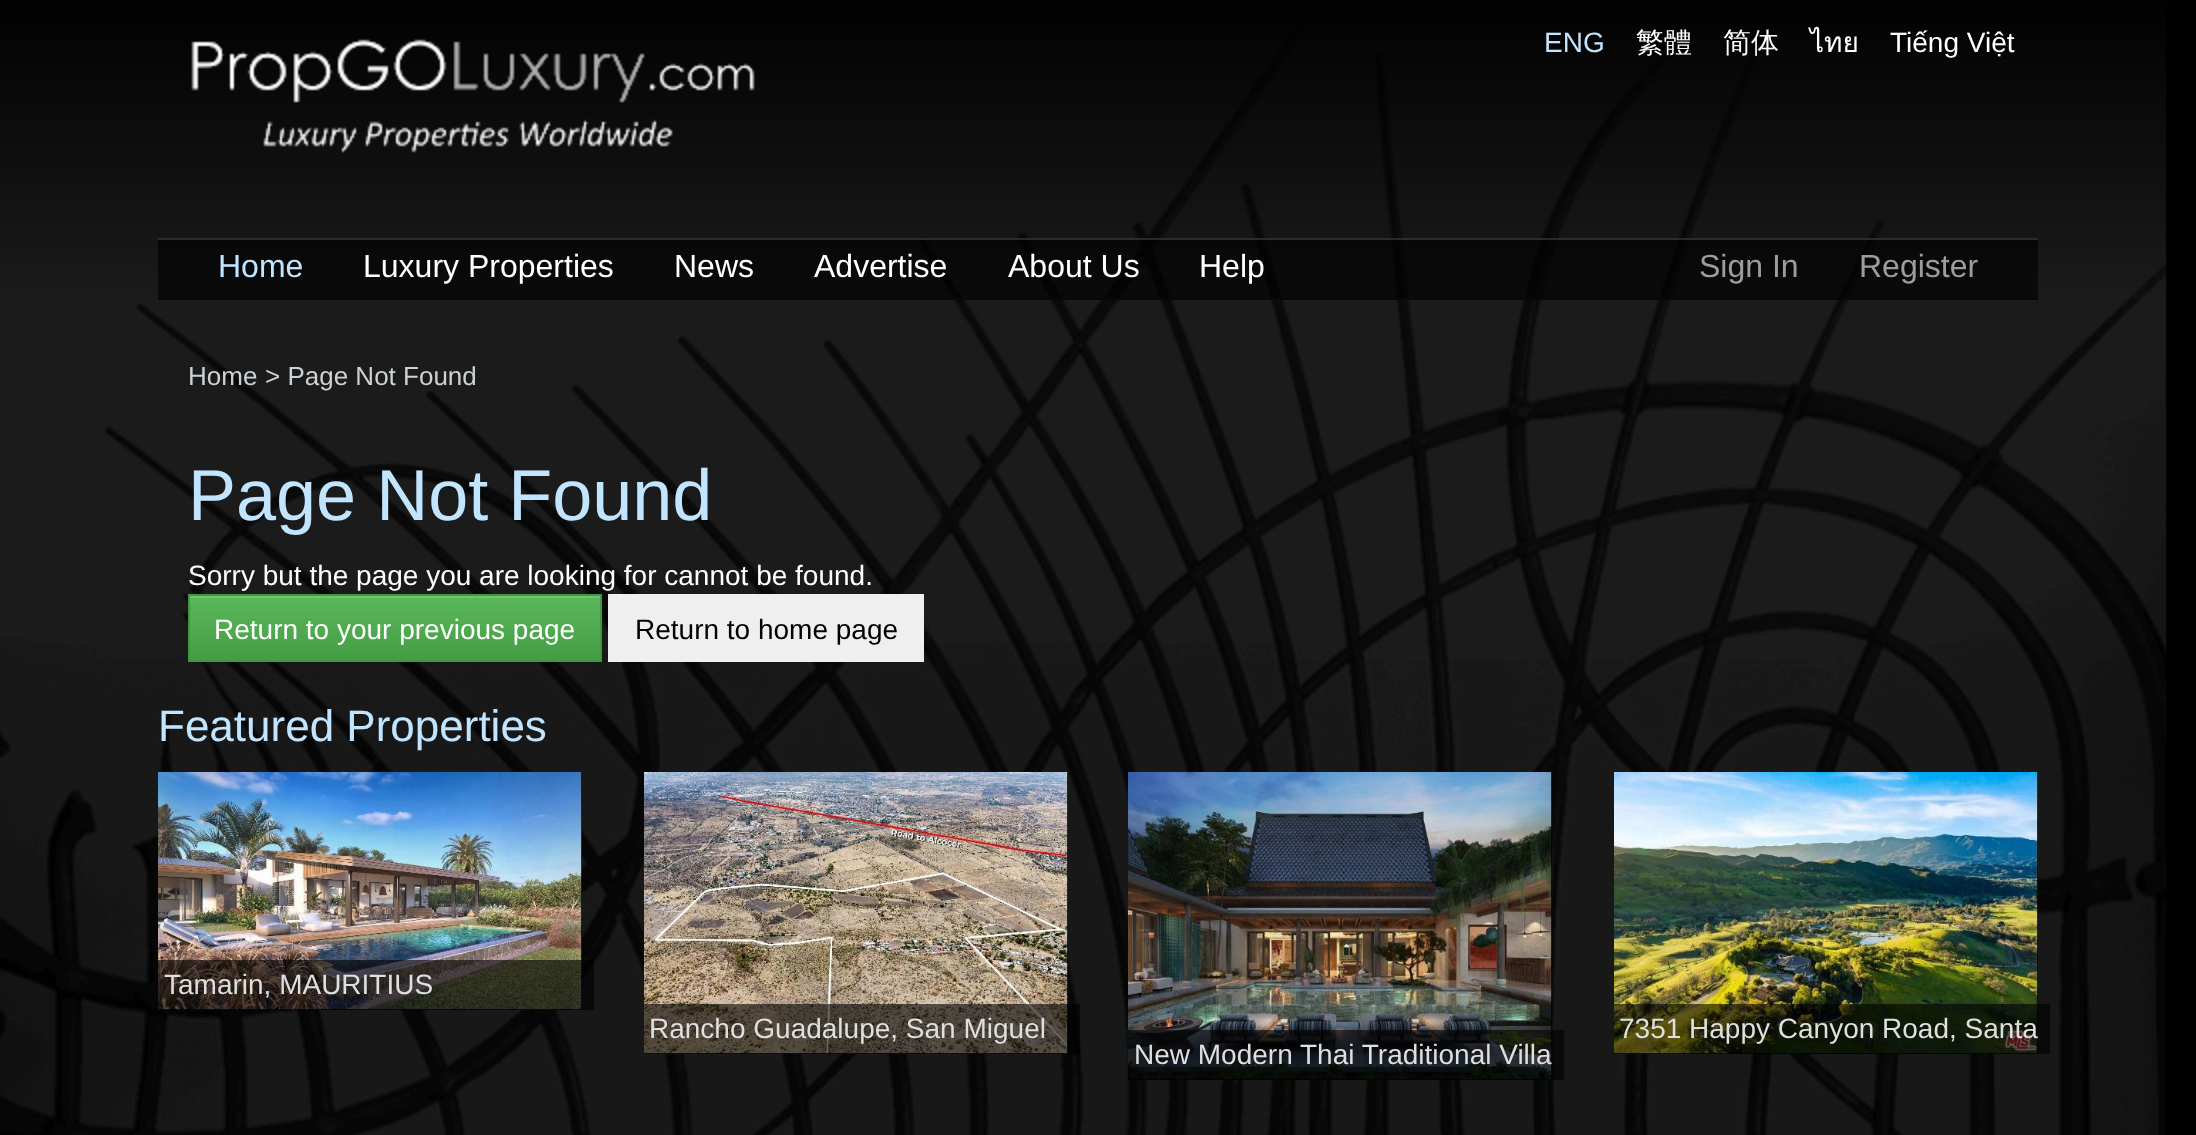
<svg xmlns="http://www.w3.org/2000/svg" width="2196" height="1135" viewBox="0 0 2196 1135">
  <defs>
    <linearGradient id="g1" gradientUnits="userSpaceOnUse" x1="395" y1="596" x2="395" y2="660"><stop offset="0" stop-color="#5cb85c"/><stop offset="1" stop-color="#449d44"/></linearGradient>
  </defs>
  <rect width="100%" height="100%" fill="#000"/>
  <image x="0" y="0" width="2166" height="1135" href="img/1.png"/>
  <image x="191" y="39" width="564" height="114" href="img/2.png"/>
  <path d="M158 238h1880v60H158z" fill="#00000099"/>
  <path d="M158 238h1880v2H158z" fill="#ffffff26"/>
  <path d="M158 298h1880v2H158z" fill="#080808"/>
  <path d="M190 598h410v62H190z" fill="url(#g1)"/>
  <path d="M190 596h410v2H190z" fill="#74c274"/>
  <path d="M189 595h412v66H189z" fill="none" stroke="#419641" stroke-width="2"/>
  <path d="M608 594h316v68H608z" fill="#efefef"/>
  <image x="158" y="772" width="424" height="238" href="img/3.png"/>
  <path d="M158 960h436v50H158z" fill="#00000099"/>
  <image x="644" y="772" width="424" height="282" href="img/4.png"/>
  <path d="M644 1004h436v50H644z" fill="#00000099"/>
  <image x="1614" y="772" width="424" height="282" href="img/5.png"/>
  <path d="M1614 1004h436v50H1614z" fill="#00000099"/>
  <image x="1128" y="772" width="424" height="308" href="img/6.png"/>
  <path d="M1128 1030h436v50H1128z" fill="#00000099"/>
  <text x="1544" y="52" font-family="Liberation Sans" font-size="28" fill="#c1e5ff">ENG</text>
  <g font-family="WenQuanYi Zen Hei" font-size="28" font-weight="500" fill="#fff">
    <text x="1636" y="52">繁體</text>
    <text x="1723" y="52">简体</text>
  </g>
  <text x="1810" y="52" font-family="Loma" font-size="28" fill="#fff">ไทย</text>
  <text x="1890" y="52" font-family="Liberation Sans" font-size="28" fill="#fff">Tiếng Việt</text>
  <text x="218" y="277" font-family="Liberation Sans" font-size="32" fill="#c1e5ff">Home</text>
  <g font-family="Liberation Sans" font-size="32" fill="#fff">
    <text x="363" y="277">Luxury Properties</text>
    <text x="674" y="277">News</text>
    <text x="814" y="277">Advertise</text>
    <text x="1008" y="277">About Us</text>
    <text x="1199" y="277">Help</text>
  </g>
  <g font-family="Liberation Sans" font-size="32" fill="#9d9d9d">
    <text x="1699" y="277">Sign In</text>
    <text x="1859" y="277">Register</text>
  </g>
  <g font-family="Liberation Sans" font-size="26" fill="#cbd1d4">
    <text x="188" y="385">Home</text>
    <text x="265" y="385">&gt; Page Not Found</text>
  </g>
  <text x="188" y="520" font-family="Liberation Sans" font-size="72" fill="#c1e5ff">Page Not Found</text>
  <g font-family="Liberation Sans" font-size="28" fill="#fff">
    <text x="188" y="585">Sorry but the page you are looking for cannot be found.</text>
    <text x="214" y="639">Return to your previous page</text>
  </g>
  <text x="635" y="639" font-family="Liberation Sans" font-size="28" fill="#000">Return to home page</text>
  <text x="158" y="741" font-family="Liberation Sans" font-size="44" fill="#c1e5ff">Featured Properties</text>
  <g font-family="Liberation Sans" font-size="28" fill="#dfdfdf">
    <text x="164" y="994">Tamarin, MAURITIUS</text>
    <text x="649" y="1038">Rancho Guadalupe, San Miguel</text>
    <text x="1619" y="1038">7351 Happy Canyon Road, Santa</text>
    <text x="1134" y="1064">New Modern Thai Traditional Villa</text>
  </g>
</svg>
